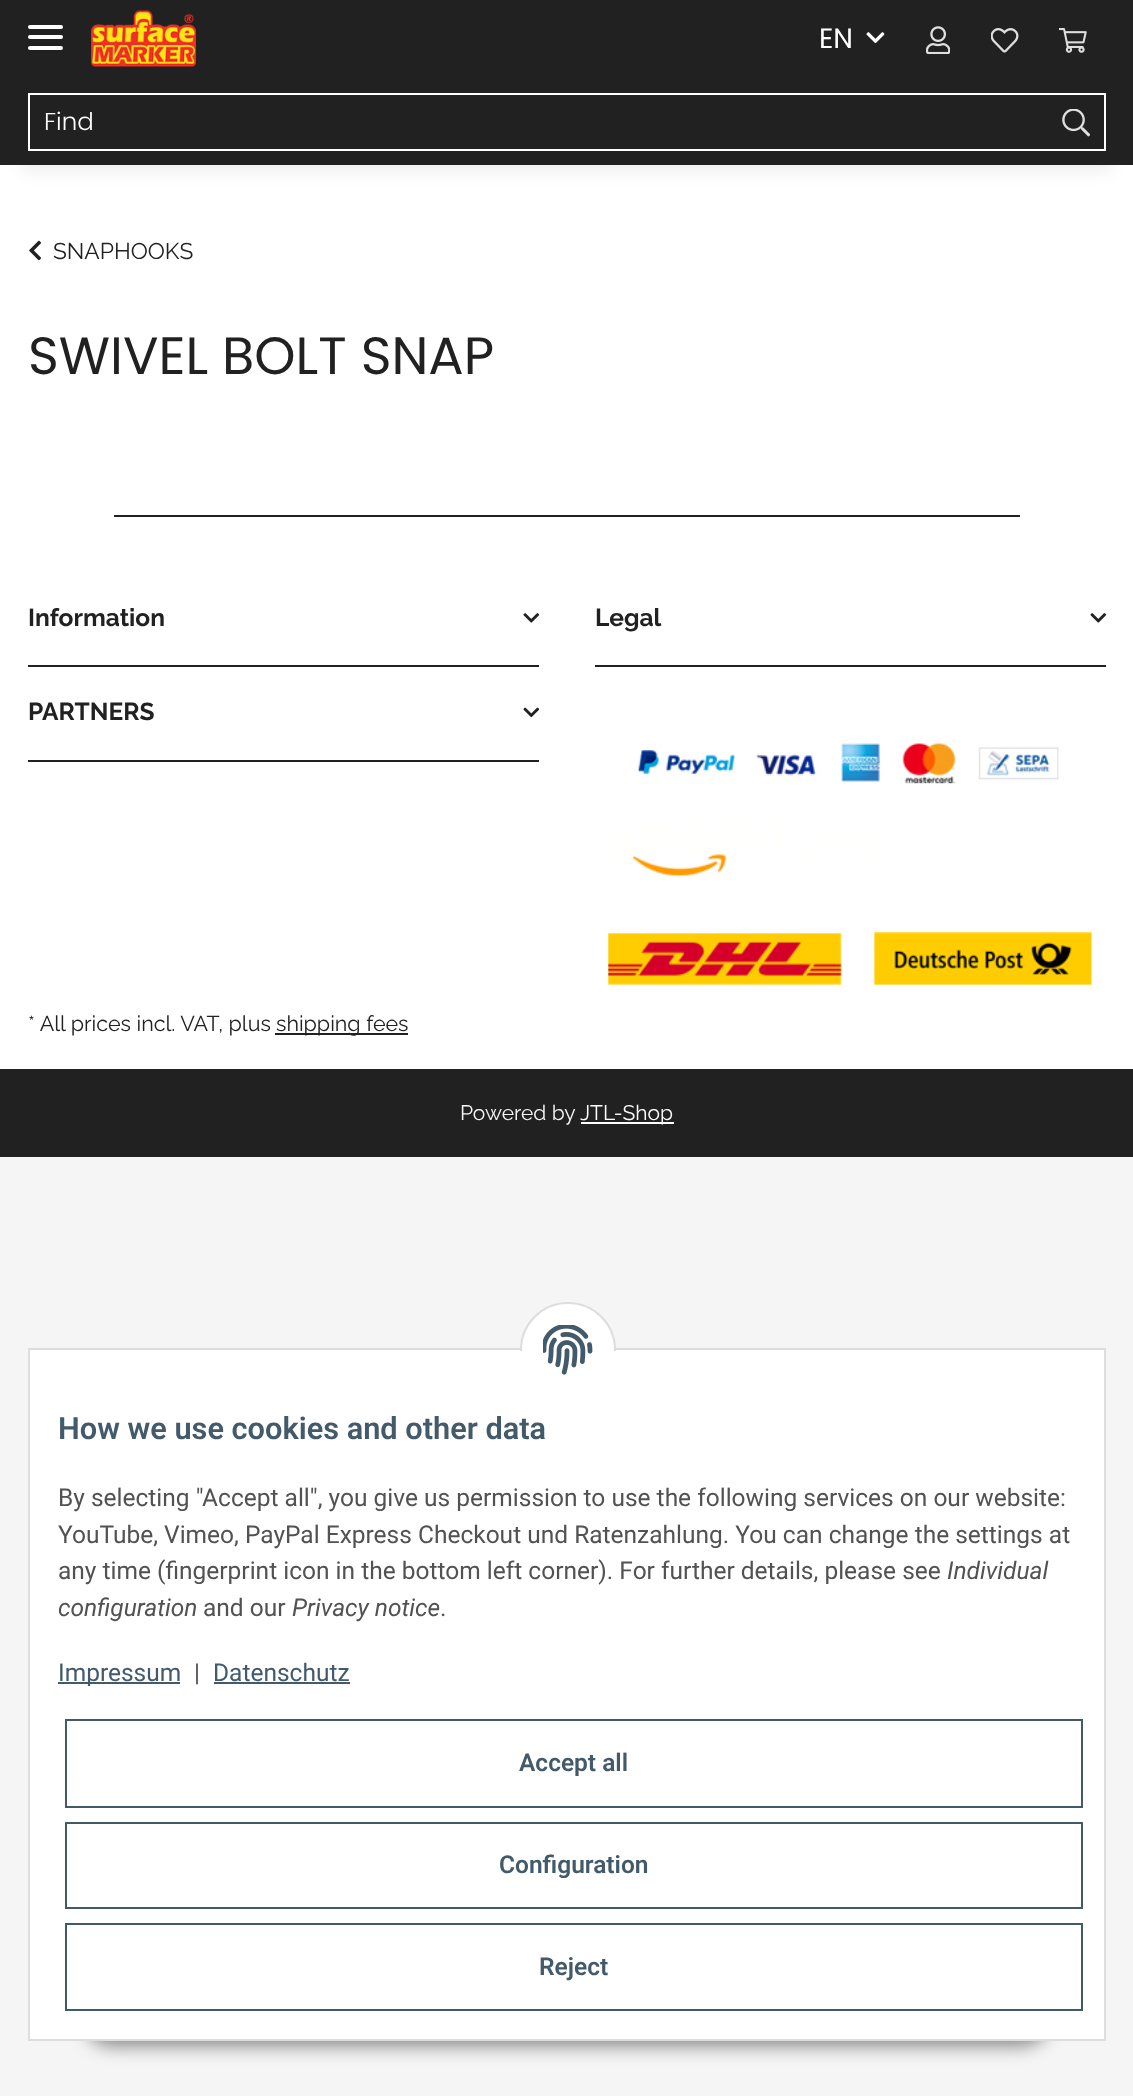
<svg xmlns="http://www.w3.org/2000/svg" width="1133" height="2096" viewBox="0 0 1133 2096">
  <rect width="100%" height="100%" fill="#f5f5f5"/>
  <path d="M0 165h1133v904H0z" fill="#fff"/>
  <path d="M21 49h1092v123H21z" fill="#0000000f" filter="blur(8px)"/>
  <path d="M0 0h1133v165H0z" fill="#212121"/>
  <rect x="28" y="35" width="35" height="4" rx="2" fill="#fff"/>
  <rect x="28" y="25" width="35" height="4" rx="2" fill="#fff"/>
  <rect x="28" y="46" width="35" height="4" rx="2" fill="#fff"/>
  <image x="91" y="10" width="105" height="57" href="img/1.png"/>
  <image x="866" y="32" width="19" height="12" href="img/2.png"/>
  <image x="926" y="26" width="24" height="28" href="img/3.png"/>
  <image x="991" y="28" width="28" height="25" href="img/4.png"/>
  <image x="1059" y="28" width="28" height="25" href="img/5.png"/>
  <path d="M29 94h1020v56H29z" fill="none" stroke="#fff" stroke-width="2"/>
  <path d="M1048 95h2v54H1048z" fill="#212121"/>
  <path d="M1048 93h58v2H1048z" fill="#fff"/>
  <path d="M1104 93h2v58H1104z" fill="#fff"/>
  <path d="M1048 149h58v2H1048z" fill="#fff"/>
  <image x="1062" y="109" width="28" height="28" href="img/6.png"/>
  <image x="29" y="240" width="12" height="21" href="img/7.png"/>
  <path d="M114 515h906v2H114z" fill="#212121"/>
  <image x="523" y="613" width="17" height="10" href="img/8.png"/>
  <path d="M28 665h511v2H28z" fill="#212121"/>
  <image x="1090" y="613" width="17" height="10" href="img/8.png"/>
  <path d="M595 665h511v2H595z" fill="#212121"/>
  <image x="523" y="707" width="17" height="11" href="img/9.png"/>
  <path d="M28 760h511v2H28z" fill="#212121"/>
  <image x="608" y="743" width="484" height="242" href="img/10.png"/>
  <path d="M275 1033h133v2H275z" fill="#212121"/>
  <path d="M0 1069h1133v88H0z" fill="#212121"/>
  <path d="M581 1122h93v2H581z" fill="#fff"/>
  <rect x="84" y="1990" width="966" height="56" rx="28" fill="#00000073" filter="blur(9px)"/>
  <path d="M29 1349h1076v691H29z" fill="#fff" stroke="#ddd" stroke-width="2"/>
  <circle cx="568" cy="1350" r="47" fill="#fff" stroke="#ddd" stroke-width="2"/>
  <path d="M520 1351h96v47H520z" fill="#fff"/>
  <image x="543" y="1325" width="50" height="50" href="img/11.png"/>
  <path d="M58 1682h122v2H58z" fill="#435a6b"/>
  <path d="M214 1682h136v2H214z" fill="#435a6b"/>
  <path d="M66 1720h1016v87H66z" fill="none" stroke="#435a6b" stroke-width="2"/>
  <path d="M66 1823h1016v85H66z" fill="none" stroke="#435a6b" stroke-width="2"/>
  <path d="M66 1924h1016v86H66z" fill="none" stroke="#435a6b" stroke-width="2"/>
  <text x="819" y="48" font-family="Poppins" font-size="28" fill="#fff">EN</text>
  <text x="44" y="130" font-family="Poppins" font-size="24.5" font-weight="300" fill="#fff">Find</text>
  <text x="53" y="259" font-family="Raleway" font-size="22.75" fill="#212121">SNAPHOOKS</text>
  <text x="28" y="374" font-family="Poppins" font-size="52.5" fill="#212121">SWIVEL BOLT SNAP</text>
  <g font-family="Raleway" font-size="24.5" font-weight="bold" fill="#212121">
    <text x="28" y="626">Information</text>
    <text x="595" y="626">Legal</text>
    <text x="28" y="720">PARTNERS</text>
  </g>
  <g font-family="Raleway" font-size="21.5" fill="#212121">
    <text x="28" y="1031">* All prices incl. VAT, plus</text>
    <text x="276" y="1031">shipping fees</text>
  </g>
  <text x="460" y="1120" font-family="Raleway" font-size="21" fill="#f5f5f5">Powered by</text>
  <text x="580" y="1120" font-family="Raleway" font-size="21" fill="#fff">JTL-Shop</text>
  <text x="58" y="1439" font-family="Roboto" font-size="30.75" font-weight="600" fill="#435a6b">How we use cookies and other data</text>
  <g font-family="Roboto" font-size="24.5" fill="#525252">
    <text x="58" y="1506">By selecting "Accept all", you give us permission to use the following services on our website:</text>
    <text x="58" y="1543">YouTube, Vimeo, PayPal Express Checkout und Ratenzahlung. You can change the settings at</text>
    <text x="58" y="1579">any time (fingerprint icon in the bottom left corner). For further details, please see</text>
  </g>
  <g font-family="Roboto" font-size="24.5" font-style="italic" fill="#525252">
    <text x="947" y="1579">Individual</text>
    <text x="58" y="1616">configuration</text>
  </g>
  <text x="203" y="1616" font-family="Roboto" font-size="24.5" fill="#525252">and our</text>
  <text x="292" y="1616" font-family="Roboto" font-size="24.5" font-style="italic" fill="#525252">Privacy notice</text>
  <text x="440" y="1616" font-family="Roboto" font-size="24.5" fill="#525252">.</text>
  <text x="58" y="1681" font-family="Roboto" font-size="24.5" fill="#435a6b">Impressum</text>
  <text x="194" y="1681" font-family="Roboto" font-size="24.5" fill="#525252">|</text>
  <text x="213" y="1681" font-family="Roboto" font-size="24.5" fill="#435a6b">Datenschutz</text>
  <g font-family="Roboto" font-size="24.5" font-weight="600" fill="#435a6b">
    <text x="519" y="1771">Accept all</text>
    <text x="499" y="1873">Configuration</text>
    <text x="539" y="1975">Reject</text>
  </g>
</svg>
